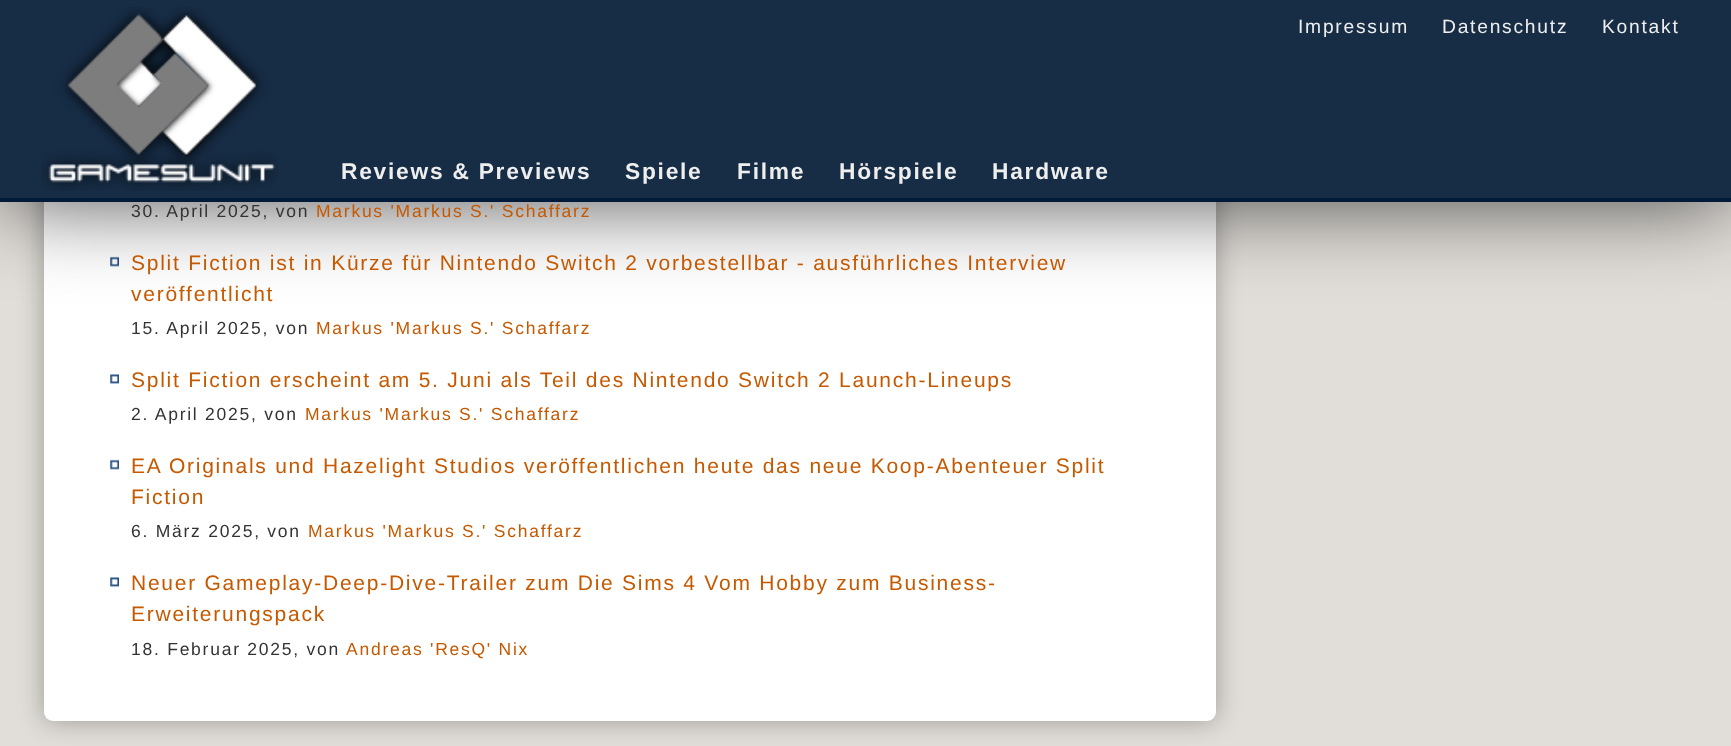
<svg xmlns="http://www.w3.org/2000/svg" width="1731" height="746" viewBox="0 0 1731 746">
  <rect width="100%" height="100%" fill="#e1ded9"/>
  <rect x="44" y="-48" width="1172" height="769" rx="9" fill="#0000004d" filter="blur(13px)"/>
  <rect x="44" y="-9" width="1172" height="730" rx="9" fill="#fff"/>
  <image x="110" y="256" width="9" height="11" href="img/2.png"/>
  <path d="M0 0h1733v201H0z" fill="#000000b3" filter="blur(44px)"/>
  <path d="M0 0h1731v198H0z" fill="#172d46"/>
  <path d="M0 198h1731v4H0z" fill="#001b39"/>
  <image x="41" y="7" width="237" height="184" href="img/1.png"/>
  <image x="110" y="374" width="9" height="10" href="img/3.png"/>
  <image x="110" y="459" width="9" height="11" href="img/2.png"/>
  <image x="110" y="577" width="9" height="10" href="img/3.png"/>
  <g font-family="Liberation Sans" font-size="19.25" letter-spacing="1.75" fill="#eee">
    <text x="1298" y="33">Impressum</text>
    <text x="1442" y="33">Datenschutz</text>
    <text x="1602" y="33">Kontakt</text>
  </g>
  <g font-family="Liberation Sans" font-size="22.75" font-weight="bold" letter-spacing="1.75" fill="#eee">
    <text x="341" y="179">Reviews &amp; Previews</text>
    <text x="625" y="179">Spiele</text>
    <text x="737" y="179">Filme</text>
    <text x="839" y="179">Hörspiele</text>
    <text x="992" y="179">Hardware</text>
  </g>
  <text x="131" y="217" font-family="Liberation Sans" font-size="17.5" letter-spacing="1.75" fill="#333">30. April 2025, von</text>
  <text x="316" y="217" font-family="Liberation Sans" font-size="17.5" letter-spacing="1.75" fill="#c65900">Markus 'Markus S.' Schaffarz</text>
  <g font-family="Liberation Sans" font-size="21" letter-spacing="1.75" fill="#c65900">
    <text x="131" y="270">Split Fiction ist in Kürze für Nintendo Switch 2 vorbestellbar - ausführliches Interview</text>
    <text x="131" y="301">veröffentlicht</text>
  </g>
  <text x="131" y="334" font-family="Liberation Sans" font-size="17.5" letter-spacing="1.75" fill="#333">15. April 2025, von</text>
  <text x="316" y="334" font-family="Liberation Sans" font-size="17.5" letter-spacing="1.75" fill="#c65900">Markus 'Markus S.' Schaffarz</text>
  <text x="131" y="387" font-family="Liberation Sans" font-size="21" letter-spacing="1.75" fill="#c65900">Split Fiction erscheint am 5. Juni als Teil des Nintendo Switch 2 Launch-Lineups</text>
  <text x="131" y="420" font-family="Liberation Sans" font-size="17.5" letter-spacing="1.75" fill="#333">2. April 2025, von</text>
  <text x="305" y="420" font-family="Liberation Sans" font-size="17.5" letter-spacing="1.75" fill="#c65900">Markus 'Markus S.' Schaffarz</text>
  <g font-family="Liberation Sans" font-size="21" letter-spacing="1.75" fill="#c65900">
    <text x="131" y="473">EA Originals und Hazelight Studios veröffentlichen heute das neue Koop-Abenteuer Split</text>
    <text x="131" y="504">Fiction</text>
  </g>
  <text x="131" y="537" font-family="Liberation Sans" font-size="17.5" letter-spacing="1.75" fill="#333">6. März 2025, von</text>
  <text x="308" y="537" font-family="Liberation Sans" font-size="17.5" letter-spacing="1.75" fill="#c65900">Markus 'Markus S.' Schaffarz</text>
  <g font-family="Liberation Sans" font-size="21" letter-spacing="1.75" fill="#c65900">
    <text x="131" y="590">Neuer Gameplay-Deep-Dive-Trailer zum Die Sims 4 Vom Hobby zum Business-</text>
    <text x="131" y="621">Erweiterungspack</text>
  </g>
  <text x="131" y="655" font-family="Liberation Sans" font-size="17.5" letter-spacing="1.75" fill="#333">18. Februar 2025, von</text>
  <text x="346" y="655" font-family="Liberation Sans" font-size="17.5" letter-spacing="1.75" fill="#c65900">Andreas 'ResQ' Nix</text>
</svg>
